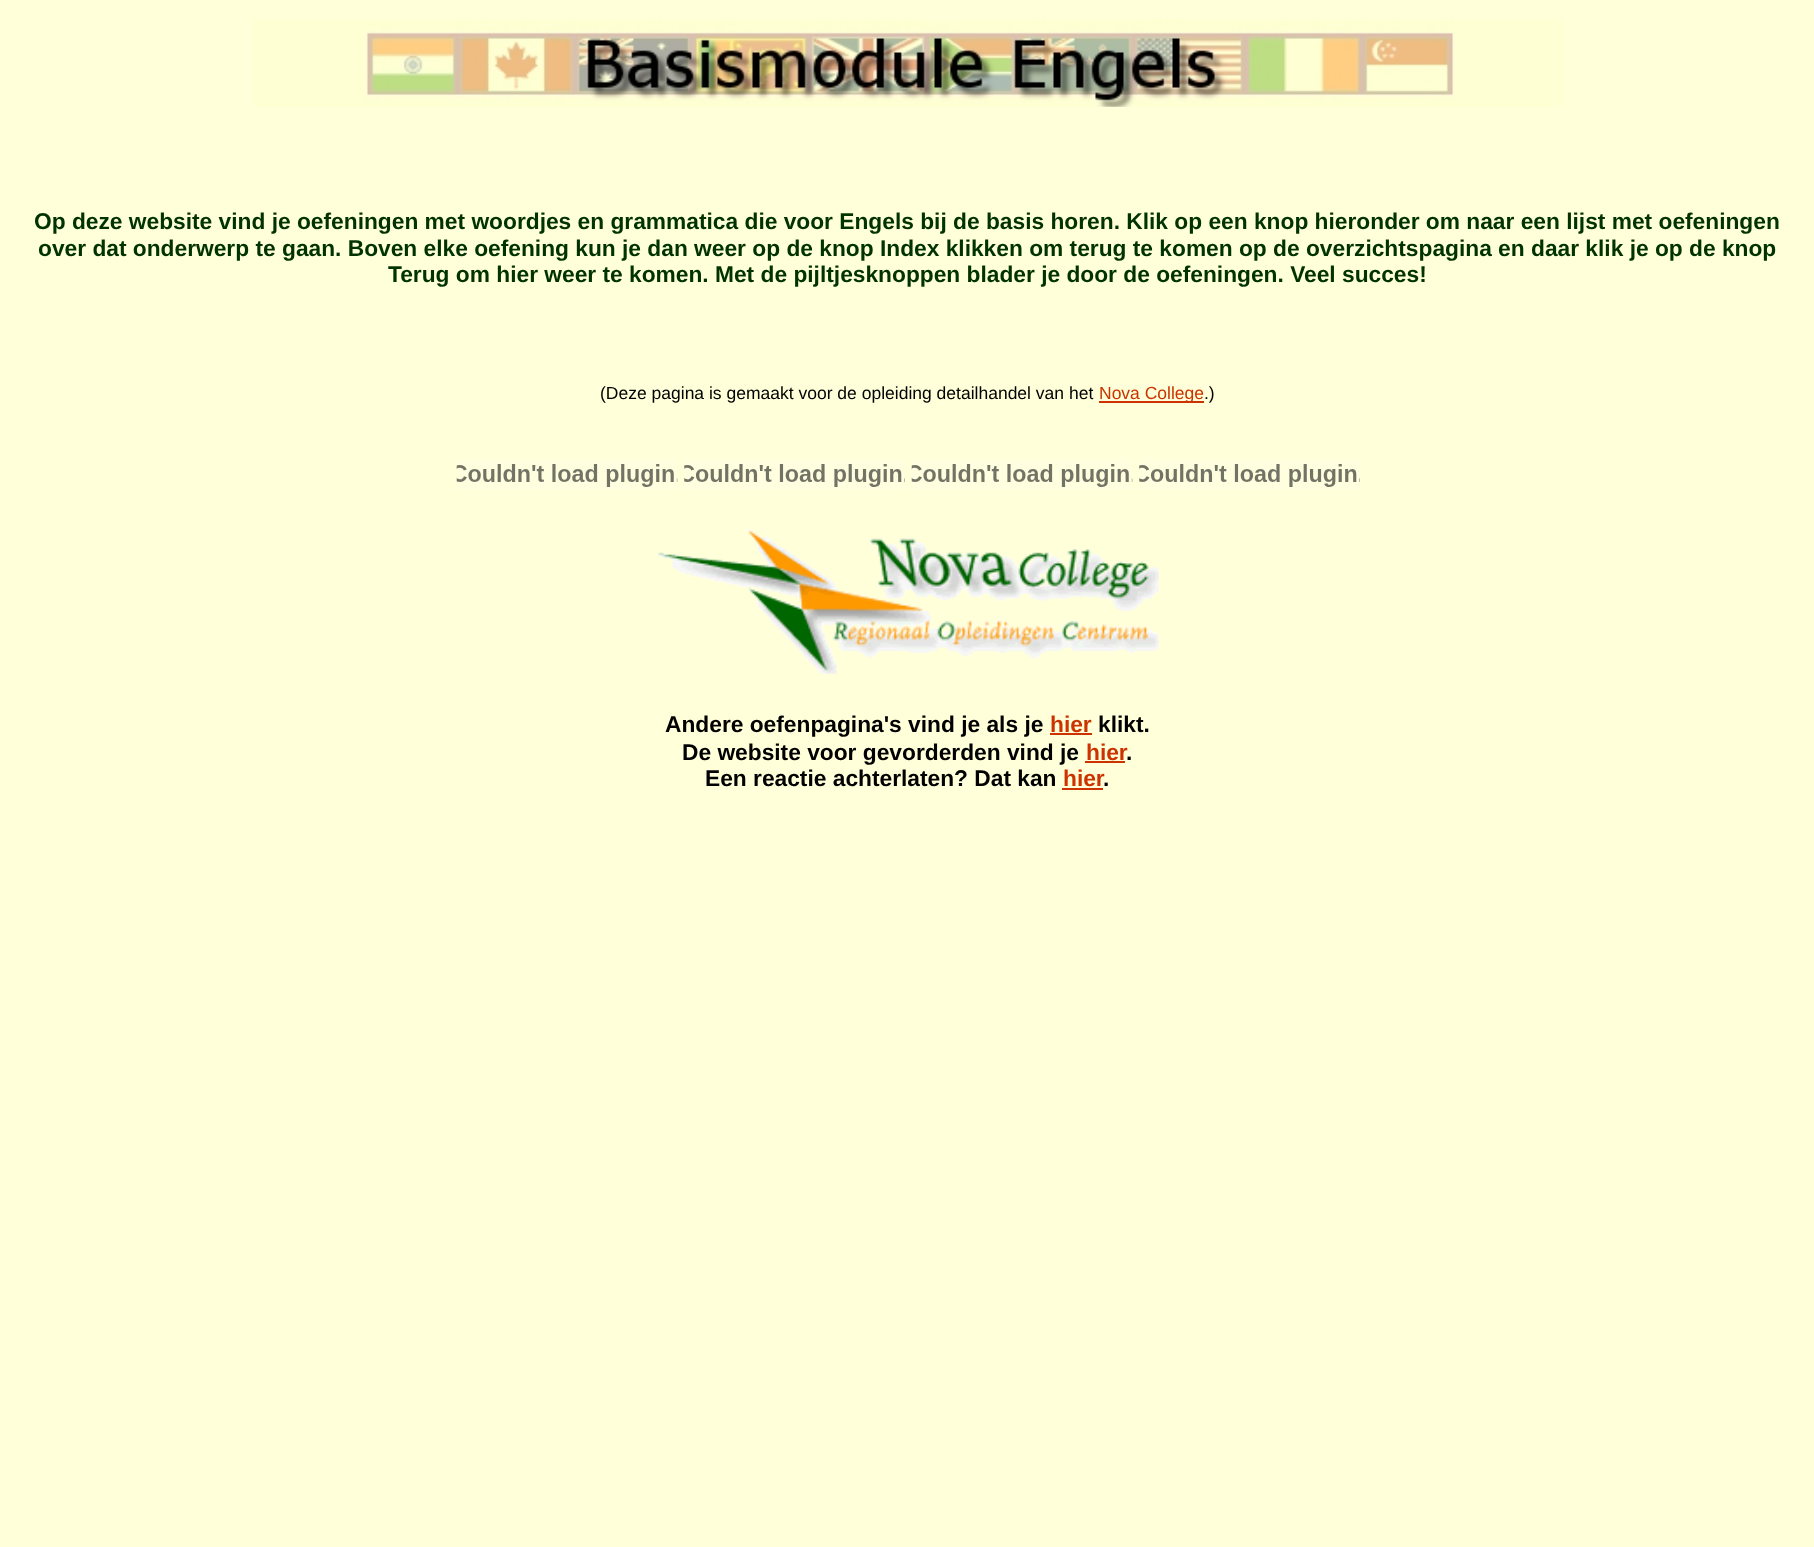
<svg xmlns="http://www.w3.org/2000/svg" width="1814" height="1547" viewBox="0 0 1814 1547">
  <rect width="100%" height="100%" fill="#ffffd9"/>
  <image x="252" y="19" width="1312" height="88" href="img/1.png"/>
  <path d="M1099 401h105v2H1099z" fill="#c30"/>
  <image x="456" y="459" width="222" height="31" href="img/2.png"/>
  <image x="684" y="459" width="221" height="31" href="img/3.png"/>
  <image x="911" y="459" width="222" height="31" href="img/2.png"/>
  <image x="1139" y="459" width="221" height="31" href="img/3.png"/>
  <image x="658" y="528" width="501" height="146" href="img/4.png"/>
  <path d="M1050 733h42v2H1050z" fill="#c30"/>
  <path d="M1085 761h40v2H1085z" fill="#c30"/>
  <path d="M1062 788h41v2H1062z" fill="#c30"/>
  <g font-family="Liberation Sans" font-size="22.75" font-weight="bold" fill="#030">
    <text x="34" y="229">Op deze website vind je oefeningen met woordjes en grammatica die voor Engels bij de basis horen. Klik op een knop hieronder om naar een lijst met oefeningen</text>
    <text x="38" y="256">over dat onderwerp te gaan. Boven elke oefening kun je dan weer op de knop Index klikken om terug te komen op de overzichtspagina en daar klik je op de knop</text>
    <text x="388" y="282">Terug om hier weer te komen. Met de pijltjesknoppen blader je door de oefeningen. Veel succes!</text>
  </g>
  <text x="600" y="399" font-family="Liberation Sans" font-size="17.5" fill="#000">(Deze pagina is gemaakt voor de opleiding detailhandel van het</text>
  <text x="1099" y="399" font-family="Liberation Sans" font-size="17.5" fill="#c30">Nova College</text>
  <text x="1204" y="399" font-family="Liberation Sans" font-size="17.5" fill="#000">.)</text>
  <text x="665" y="732" font-family="Liberation Sans" font-size="22.75" font-weight="bold" fill="#000">Andere oefenpagina's vind je als je</text>
  <text x="1050" y="732" font-family="Liberation Sans" font-size="22.75" font-weight="bold" fill="#c30">hier</text>
  <g font-family="Liberation Sans" font-size="22.75" font-weight="bold" fill="#000">
    <text x="1098" y="732">klikt.</text>
    <text x="682" y="760">De website voor gevorderden vind je</text>
  </g>
  <text x="1086" y="760" font-family="Liberation Sans" font-size="22.75" font-weight="bold" fill="#c30">hier</text>
  <g font-family="Liberation Sans" font-size="22.75" font-weight="bold" fill="#000">
    <text x="1126" y="760">.</text>
    <text x="705" y="786">Een reactie achterlaten? Dat kan</text>
  </g>
  <text x="1063" y="786" font-family="Liberation Sans" font-size="22.75" font-weight="bold" fill="#c30">hier</text>
  <text x="1103" y="786" font-family="Liberation Sans" font-size="22.75" font-weight="bold" fill="#000">.</text>
</svg>
